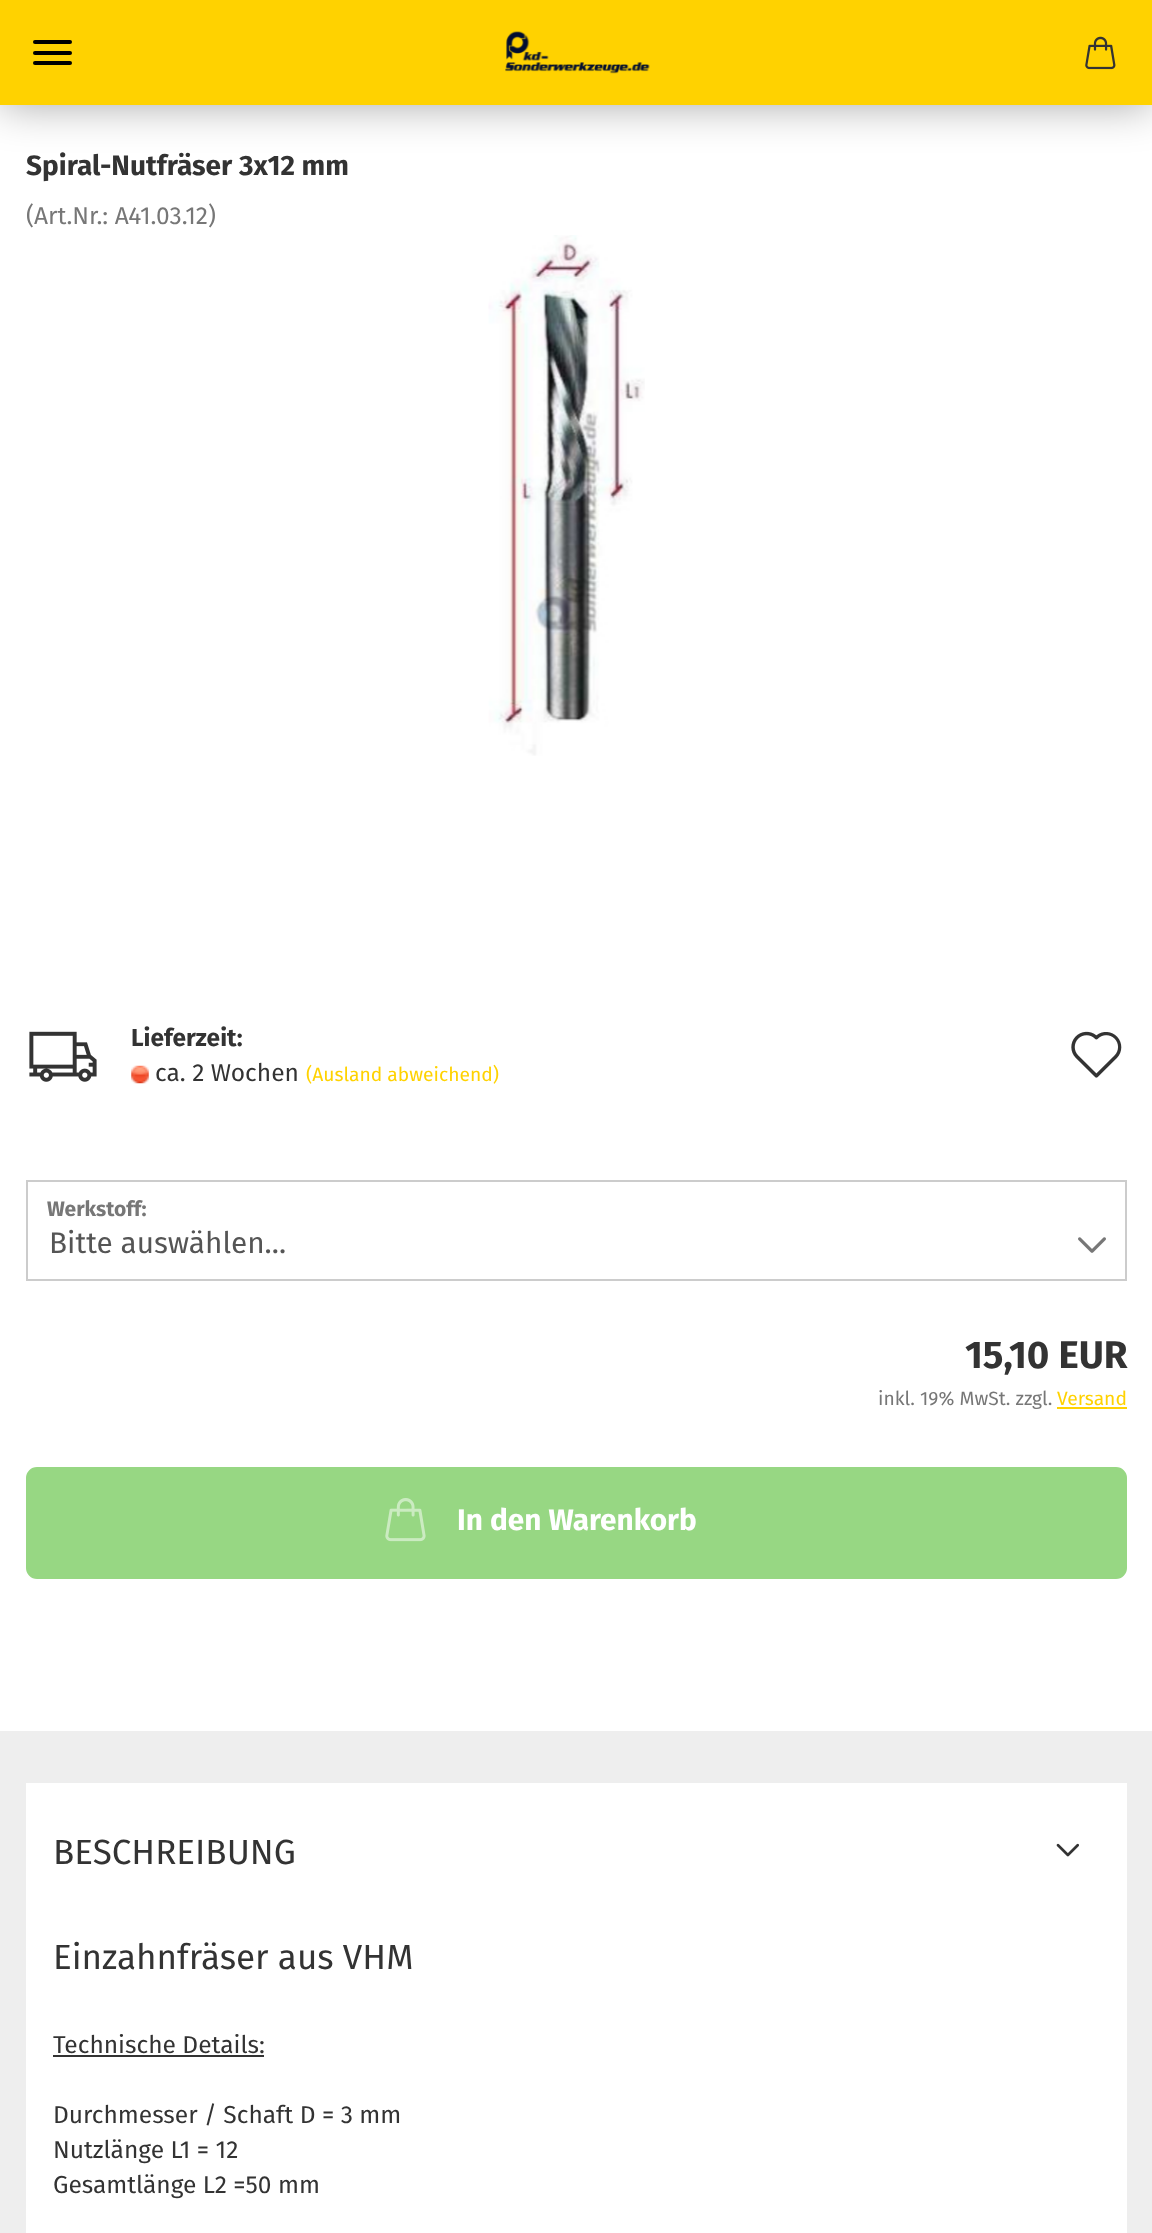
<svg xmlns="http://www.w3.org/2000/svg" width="1152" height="2233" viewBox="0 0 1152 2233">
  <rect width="100%" height="100%" fill="#fff"/>
  <path d="M0 0h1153v105H0z" fill="#00000059" filter="blur(22px)"/>
  <path d="M0 0h1152v105H0z" fill="#ffd200"/>
  <image x="505" y="31" width="145" height="43" href="img/1.png"/>
  <image x="1085" y="36" width="31" height="34" href="img/2.png"/>
  <rect x="33" y="51" width="39" height="4" rx="2" fill="#000"/>
  <rect x="33" y="40" width="39" height="4" rx="2" fill="#000"/>
  <rect x="33" y="61" width="39" height="4" rx="2" fill="#000"/>
  <image x="488" y="235" width="157" height="521" href="img/3.png"/>
  <image x="29" y="1031" width="68" height="51" href="img/4.png"/>
  <image x="131" y="1065" width="18" height="19" href="img/5.png"/>
  <image x="1071" y="1031" width="51" height="47" href="img/6.png"/>
  <path d="M27 1181h1099v99H27z" fill="none" stroke="#ccc" stroke-width="2"/>
  <image x="1078" y="1237" width="28" height="16" href="img/7.png"/>
  <path d="M1057 1407h70v2H1057z" fill="#ffd200"/>
  <rect x="27" y="1468" width="1099" height="110" rx="10" fill="#97d783" stroke="#97d783" stroke-width="2"/>
  <image x="385" y="1498" width="41" height="44" href="img/8.png"/>
  <path d="M0 1731h1152v502H0z" fill="#eee"/>
  <path d="M26 1783h1101v450H26z" fill="#fff"/>
  <image x="1056" y="1843" width="23" height="14" href="img/9.png"/>
  <path d="M53 2055h211v2H53z" fill="#333"/>
  <text x="26" y="175" font-family="Fira Sans" font-size="28" font-weight="bold" fill="#333">Spiral-Nutfräser 3x12 mm</text>
  <text x="26" y="224" font-family="Fira Sans" font-size="24.5" fill="#777">(Art.Nr.: A41.03.12)</text>
  <text x="131" y="1046" font-family="Fira Sans" font-size="24.5" font-weight="bold" fill="#333">Lieferzeit:</text>
  <text x="155" y="1081" font-family="Fira Sans" font-size="24.5" fill="#333">ca. 2 Wochen</text>
  <text x="306" y="1081" font-family="Fira Sans" font-size="19.25" fill="#ffd200">(Ausland abweichend)</text>
  <text x="47" y="1216" font-family="Fira Sans" font-size="21" font-weight="bold" fill="#777">Werkstoff:</text>
  <text x="49" y="1253" font-family="Fira Sans" font-size="29.75" fill="#555">Bitte auswählen...</text>
  <text x="965" y="1368" font-family="Fira Sans" font-size="38.5" font-weight="bold" fill="#333">15,10 EUR</text>
  <text x="878" y="1405" font-family="Fira Sans" font-size="19.25" fill="#777">inkl. 19% MwSt. zzgl.</text>
  <text x="1057" y="1405" font-family="Fira Sans" font-size="19.25" fill="#ffd200">Versand</text>
  <text x="457" y="1530" font-family="Fira Sans" font-size="29.75" font-weight="bold" fill="#fff">In den Warenkorb</text>
  <g font-family="Fira Sans" font-size="35" fill="#333">
    <text x="53" y="1864">BESCHREIBUNG</text>
    <text x="53" y="1969">Einzahnfräser aus VHM</text>
  </g>
  <g font-family="Fira Sans" font-size="24.5" fill="#333">
    <text x="53" y="2053">Technische Details:</text>
    <text x="53" y="2123">Durchmesser / Schaft D = 3 mm</text>
    <text x="53" y="2158">Nutzlänge L1 = 12</text>
    <text x="53" y="2193">Gesamtlänge L2 =50 mm</text>
  </g>
</svg>
